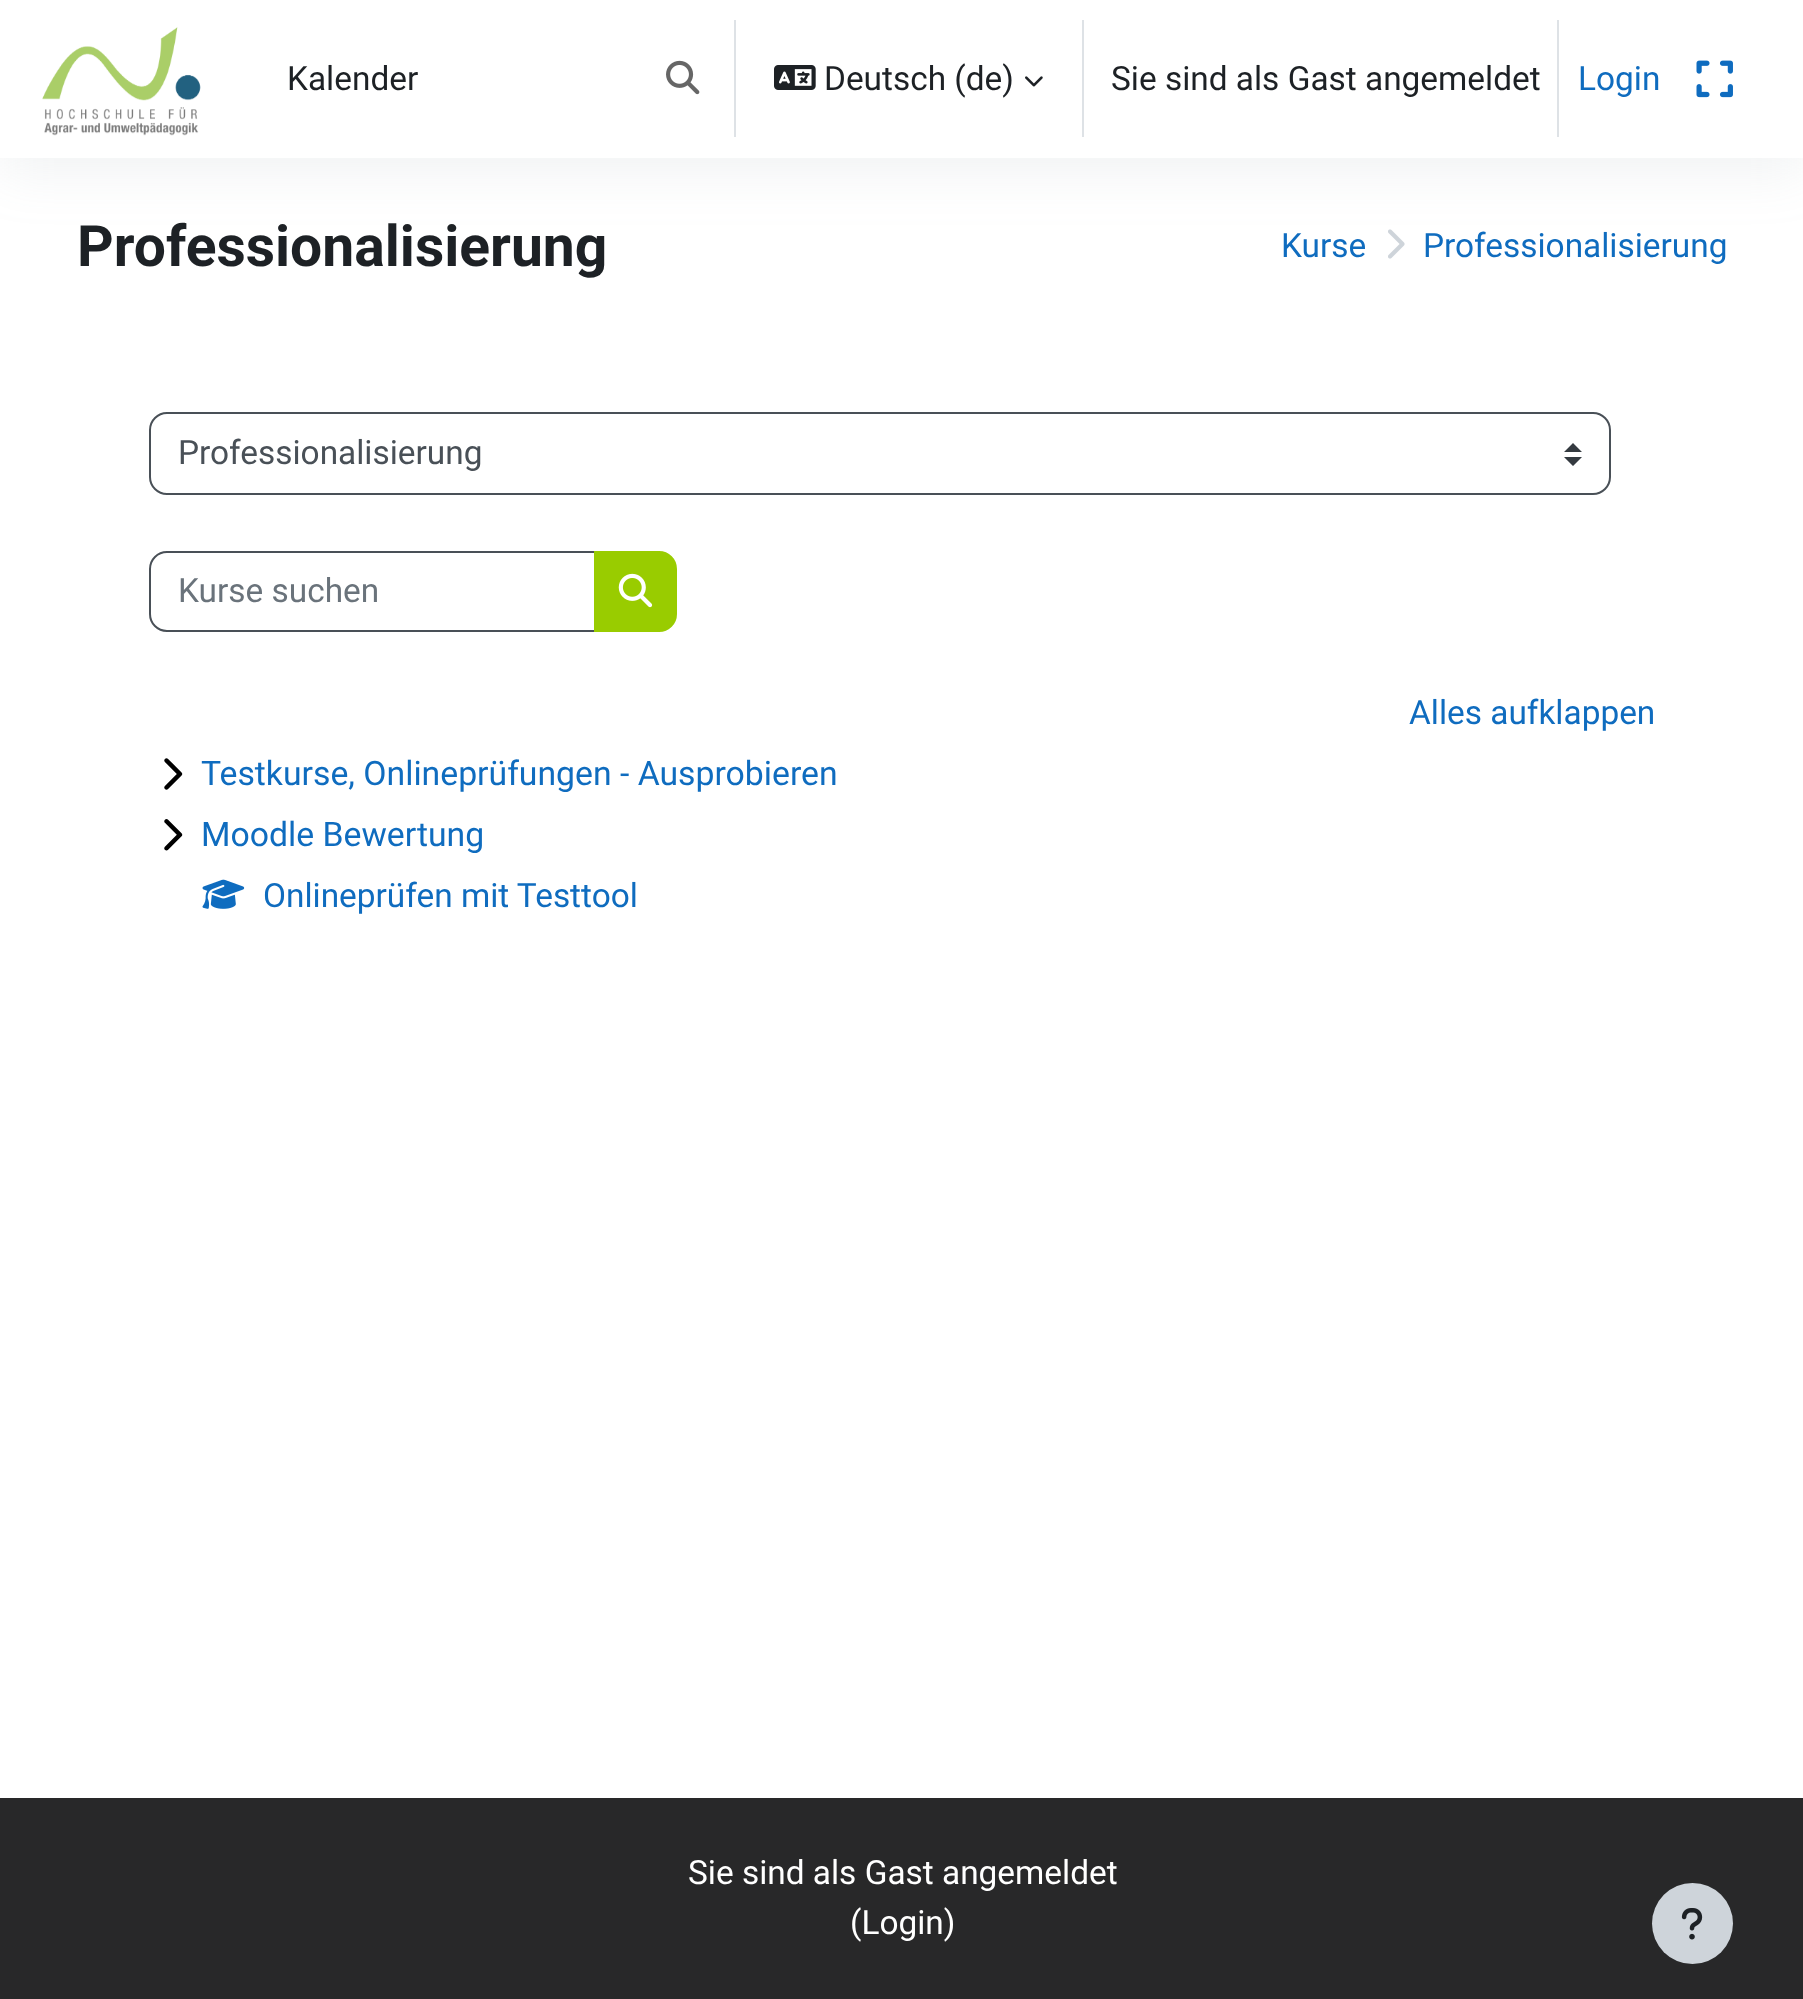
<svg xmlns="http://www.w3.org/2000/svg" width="1803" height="1999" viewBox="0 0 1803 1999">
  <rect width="100%" height="100%" fill="#fff"/>
  <image x="1388" y="229" width="17" height="30" href="img/6.png"/>
  <path d="M0 14h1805v157H0z" fill="#8c98a421" filter="blur(27px)"/>
  <path d="M0 0h1803v158H0z" fill="#fff"/>
  <image x="42" y="27" width="159" height="109" href="img/1.png"/>
  <image x="666" y="60" width="34" height="35" href="img/2.png"/>
  <path d="M734 20h2v117H734z" fill="#dee2e6"/>
  <image x="774" y="65" width="42" height="25" href="img/3.png"/>
  <image x="1025" y="76" width="18" height="11" href="img/4.png"/>
  <path d="M1082 20h2v117H1082z" fill="#dee2e6"/>
  <path d="M1557 20h2v117H1557z" fill="#dee2e6"/>
  <image x="1696" y="60" width="37" height="38" href="img/5.png"/>
  <path d="M1573 443L1564 452H1582ZM1573 466L1564 457H1582Z" fill="#343a40"/>
  <rect x="150" y="413" width="1460" height="81" rx="17" fill="none" stroke="#495057" stroke-width="2"/>
  <path d="M167 552H595V631H167C157.5 631 150 623.5 150 614V569C150 559.5 157.5 552 167 552Z" fill="none" stroke="#495057" stroke-width="2"/>
  <path d="M595 552H659C668.5 552 676 559.5 676 569V614C676 623.5 668.5 631 659 631H595Z" fill="#9c0" stroke="#9c0" stroke-width="2"/>
  <image x="618" y="573" width="35" height="35" href="img/7.png"/>
  <image x="164" y="758" width="19" height="32" href="img/8.png"/>
  <image x="164" y="819" width="19" height="32" href="img/9.png"/>
  <image x="202" y="879" width="43" height="30" href="img/10.png"/>
  <path d="M0 1798h1803v201H0z" fill="#282829"/>
  <circle cx="1692.5" cy="1923.5" r="40.5" fill="#ced4da"/>
  <image x="1681" y="1908" width="22" height="32" href="img/11.png"/>
  <g font-family="Roboto" font-size="33.4" fill="#1d2125">
    <text x="287" y="90">Kalender</text>
    <text x="824" y="90">Deutsch (de)</text>
    <text x="1111" y="90">Sie sind als Gast angemeldet</text>
  </g>
  <text x="1578" y="90" font-family="Roboto" font-size="33.4" fill="#0f6cbf">Login</text>
  <text x="77" y="266" font-family="Roboto" font-size="57" font-weight="bold" fill="#1d2125">Professionalisierung</text>
  <g font-family="Roboto" font-size="33.4" fill="#0f6cbf">
    <text x="1281" y="257">Kurse</text>
    <text x="1423" y="257">Professionalisierung</text>
  </g>
  <text x="178" y="464" font-family="Roboto" font-size="33.4" fill="#495057">Professionalisierung</text>
  <text x="178" y="602" font-family="Roboto" font-size="33.4" fill="#6a737b">Kurse suchen</text>
  <text x="1409" y="724" font-family="Roboto" font-size="33.4" fill="#0f6cbf">Alles aufklappen</text>
  <g font-family="Roboto" font-size="33.75" fill="#0f6cbf">
    <text x="201" y="785">Testkurse, Onlineprüfungen - Ausprobieren</text>
    <text x="201" y="846">Moodle Bewertung</text>
  </g>
  <text x="263" y="907" font-family="Roboto" font-size="33.4" fill="#0f6cbf">Onlineprüfen mit Testtool</text>
  <g font-family="Roboto" font-size="33.4" fill="#fff">
    <text x="688" y="1884">Sie sind als Gast angemeldet</text>
    <text x="850" y="1934">(Login)</text>
  </g>
</svg>
